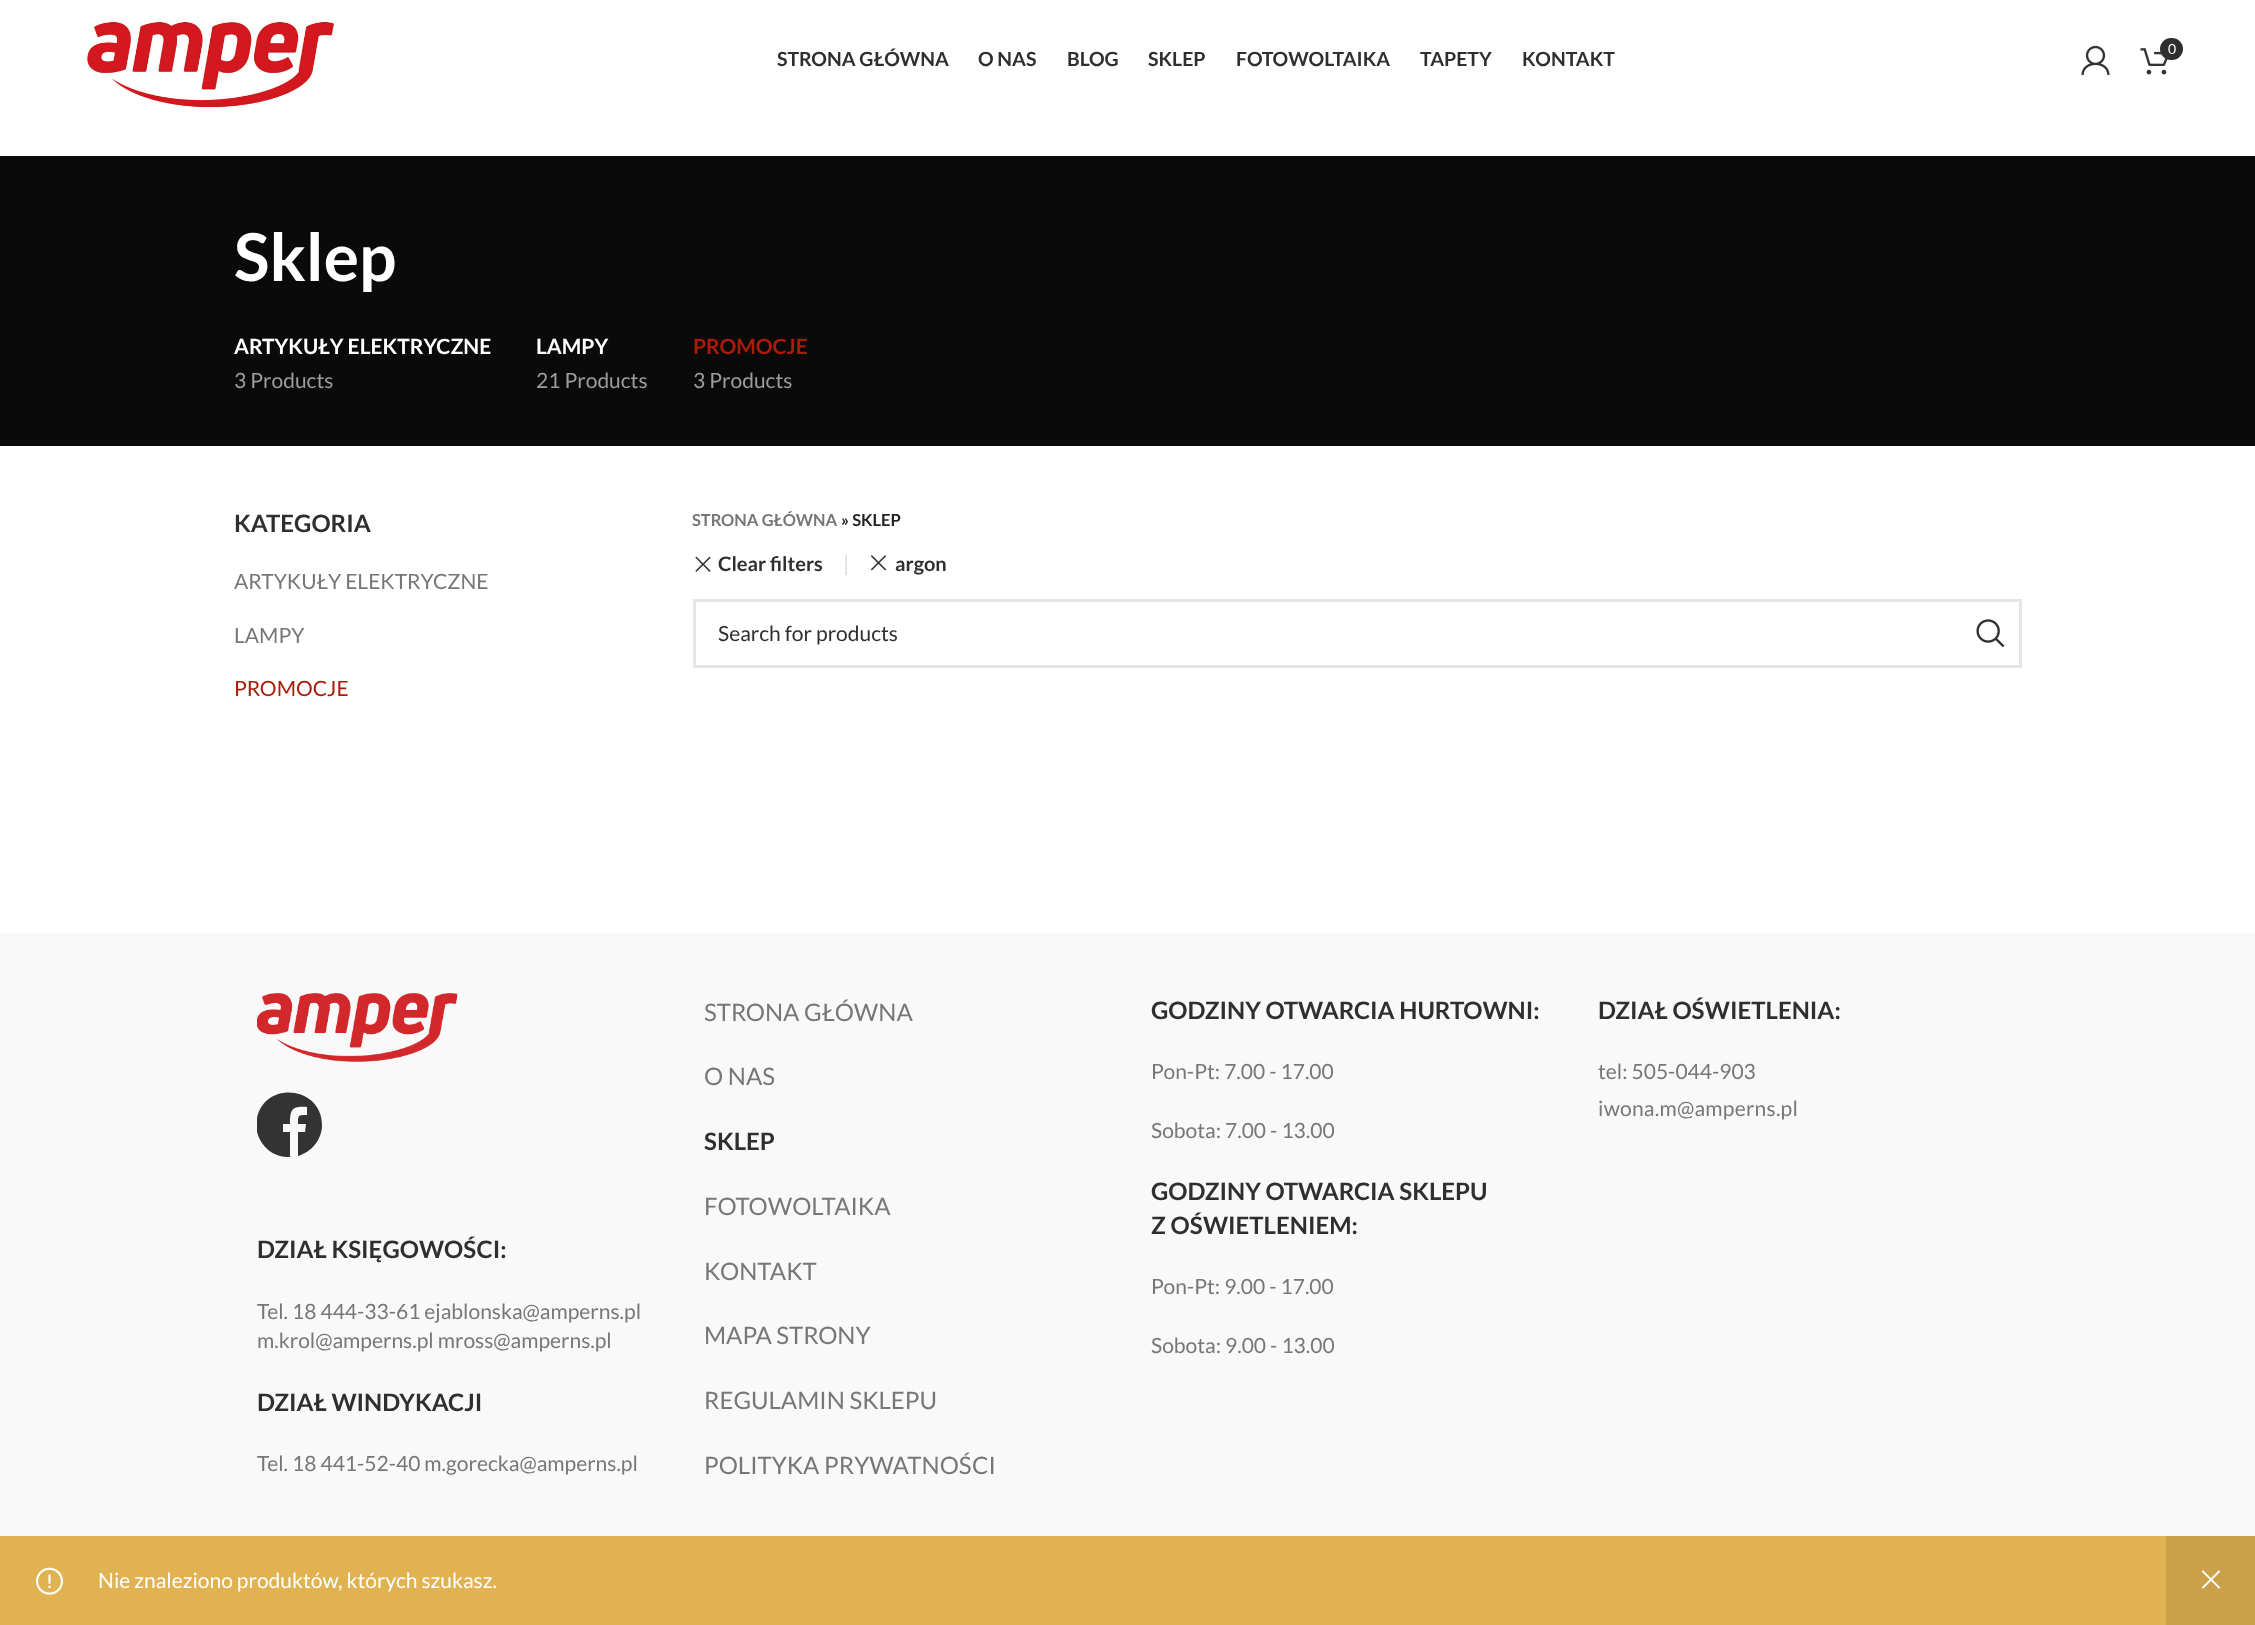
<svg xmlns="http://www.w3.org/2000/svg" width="2255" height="1625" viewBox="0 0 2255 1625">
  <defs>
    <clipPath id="clip1"><path d="M257 1092h66v66H257z"/></clipPath>
  </defs>
  <rect width="100%" height="100%" fill="#fff"/>
  <image x="85" y="20" width="251" height="88" href="img/1.png"/>
  <image x="2081" y="45" width="29" height="30" href="img/2.png"/>
  <image x="2140" y="48" width="28" height="27" href="img/3.png"/>
  <rect x="2160" y="38" width="23" height="22" rx="11" fill="#2f2f2f"/>
  <path d="M0 156h2255v290H0z" fill="#0a0a0a"/>
  <path d="M845 555h2v20H845z" fill="#e4e4e4"/>
  <image x="695" y="556" width="16" height="16" href="img/4.png"/>
  <image x="870" y="555" width="17" height="16" href="img/5.png"/>
  <path d="M694.5 600.5h1326v66H694.5z" fill="none" stroke="#e6e6e6" stroke-width="3"/>
  <image x="1976" y="619" width="29" height="29" href="img/6.png"/>
  <path d="M0 1536h2166v89H0z" fill="#e0b252"/>
  <image x="36" y="1567" width="27" height="28" href="img/7.png"/>
  <path d="M2166 1536h89v89H2166z" fill="#caa04a"/>
  <image x="2201" y="1570" width="20" height="19" href="img/8.png"/>
  <path d="M0 933h2255v603H0z" fill="#f9f9f9"/>
  <image x="257" y="993" width="201" height="69" href="img/9.png"/>
  <g clip-path="url(#clip1)">
    <path d="M322 1125C322 1086 265 1080 257 1118C255 1127 257 1136 262 1143C268 1152 279 1158 290 1157V1132H283V1124H290C290 1109 292 1106 307 1107V1115C298 1115 298 1115 298 1124H306L305 1132H298V1156C312 1152 322 1139 322 1125Z" fill="#333"/>
  </g>
  <g font-family="Lato" font-size="19.5" font-weight="bold" fill="#2f2f2f">
    <text x="777" y="66">STRONA GŁÓWNA</text>
    <text x="978" y="66">O NAS</text>
    <text x="1067" y="66">BLOG</text>
    <text x="1148" y="66">SKLEP</text>
    <text x="1236" y="66">FOTOWOLTAIKA</text>
    <text x="1420" y="66">TAPETY</text>
    <text x="1522" y="66">KONTAKT</text>
  </g>
  <text x="2168" y="54" font-family="Lato" font-size="14" fill="#fff">0</text>
  <text x="234" y="281" font-family="Lato" font-size="66" font-weight="bold" fill="#fff">Sklep</text>
  <text x="234" y="354" font-family="Lato" font-size="21" font-weight="bold" fill="#fff">ARTYKUŁY ELEKTRYCZNE</text>
  <text x="234" y="388" font-family="Lato" font-size="21" fill="#9d9d9d">3 Products</text>
  <text x="536" y="354" font-family="Lato" font-size="21" font-weight="bold" fill="#fff">LAMPY</text>
  <text x="536" y="388" font-family="Lato" font-size="21" fill="#9d9d9d">21 Products</text>
  <text x="693" y="354" font-family="Lato" font-size="21" font-weight="bold" fill="#ab1b0a">PROMOCJE</text>
  <text x="693" y="388" font-family="Lato" font-size="21" fill="#9d9d9d">3 Products</text>
  <text x="692" y="526" font-family="Lato" font-size="16.5" font-weight="bold" fill="#777">STRONA GŁÓWNA</text>
  <text x="841" y="526" font-family="Lato" font-size="16.5" font-weight="bold" fill="#242424">» SKLEP</text>
  <g font-family="Lato" font-size="20" font-weight="bold" fill="#2f2f2f">
    <text x="718" y="571">Clear filters</text>
    <text x="895" y="571">argon</text>
  </g>
  <text x="718" y="641" font-family="Lato" font-size="21" fill="#2f2f2f">Search for products</text>
  <text x="98" y="1588" font-family="Lato" font-size="21" fill="#fff">Nie znaleziono produktów, których szukasz.</text>
  <text x="234" y="532" font-family="Lato" font-size="24" font-weight="bold" fill="#2f2f2f">KATEGORIA</text>
  <g font-family="Lato" font-size="21" fill="#777">
    <text x="234" y="589">ARTYKUŁY ELEKTRYCZNE</text>
    <text x="234" y="643">LAMPY</text>
  </g>
  <text x="234" y="696" font-family="Lato" font-size="21" fill="#ab1b0a">PROMOCJE</text>
  <text x="257" y="1258" font-family="Lato" font-size="24" font-weight="bold" fill="#2f2f2f">DZIAŁ KSIĘGOWOŚCI:</text>
  <g font-family="Lato" font-size="21" fill="#777">
    <text x="257" y="1319">Tel. 18 444-33-61 ejablonska@amperns.pl</text>
    <text x="257" y="1348">m.krol@amperns.pl mross@amperns.pl</text>
  </g>
  <text x="257" y="1411" font-family="Lato" font-size="24" font-weight="bold" fill="#2f2f2f">DZIAŁ WINDYKACJI</text>
  <text x="257" y="1471" font-family="Lato" font-size="21" fill="#777">Tel. 18 441-52-40 m.gorecka@amperns.pl</text>
  <g font-family="Lato" font-size="24" fill="#777">
    <text x="704" y="1021">STRONA GŁÓWNA</text>
    <text x="704" y="1085">O NAS</text>
  </g>
  <text x="704" y="1150" font-family="Lato" font-size="24" font-weight="bold" fill="#2f2f2f">SKLEP</text>
  <g font-family="Lato" font-size="24" fill="#777">
    <text x="704" y="1215">FOTOWOLTAIKA</text>
    <text x="704" y="1280">KONTAKT</text>
    <text x="704" y="1344">MAPA STRONY</text>
    <text x="704" y="1409">REGULAMIN SKLEPU</text>
    <text x="704" y="1474">POLITYKA PRYWATNOŚCI</text>
  </g>
  <text x="1151" y="1019" font-family="Lato" font-size="24" font-weight="bold" fill="#2f2f2f">GODZINY OTWARCIA HURTOWNI:</text>
  <g font-family="Lato" font-size="21" fill="#777">
    <text x="1151" y="1079">Pon-Pt: 7.00 - 17.00</text>
    <text x="1151" y="1138">Sobota: 7.00 - 13.00</text>
  </g>
  <g font-family="Lato" font-size="24" font-weight="bold" fill="#2f2f2f">
    <text x="1151" y="1200">GODZINY OTWARCIA SKLEPU</text>
    <text x="1151" y="1234">Z OŚWIETLENIEM:</text>
  </g>
  <g font-family="Lato" font-size="21" fill="#777">
    <text x="1151" y="1294">Pon-Pt: 9.00 - 17.00</text>
    <text x="1151" y="1353">Sobota: 9.00 - 13.00</text>
  </g>
  <text x="1598" y="1019" font-family="Lato" font-size="24" font-weight="bold" fill="#2f2f2f">DZIAŁ OŚWIETLENIA:</text>
  <text x="1598" y="1079" font-family="Lato" font-size="21" fill="#777">tel: 505-044-903</text>
  <text x="1598" y="1116" font-family="Lato" font-size="21" letter-spacing="0.25" fill="#777">iwona.m@amperns.pl</text>
</svg>
